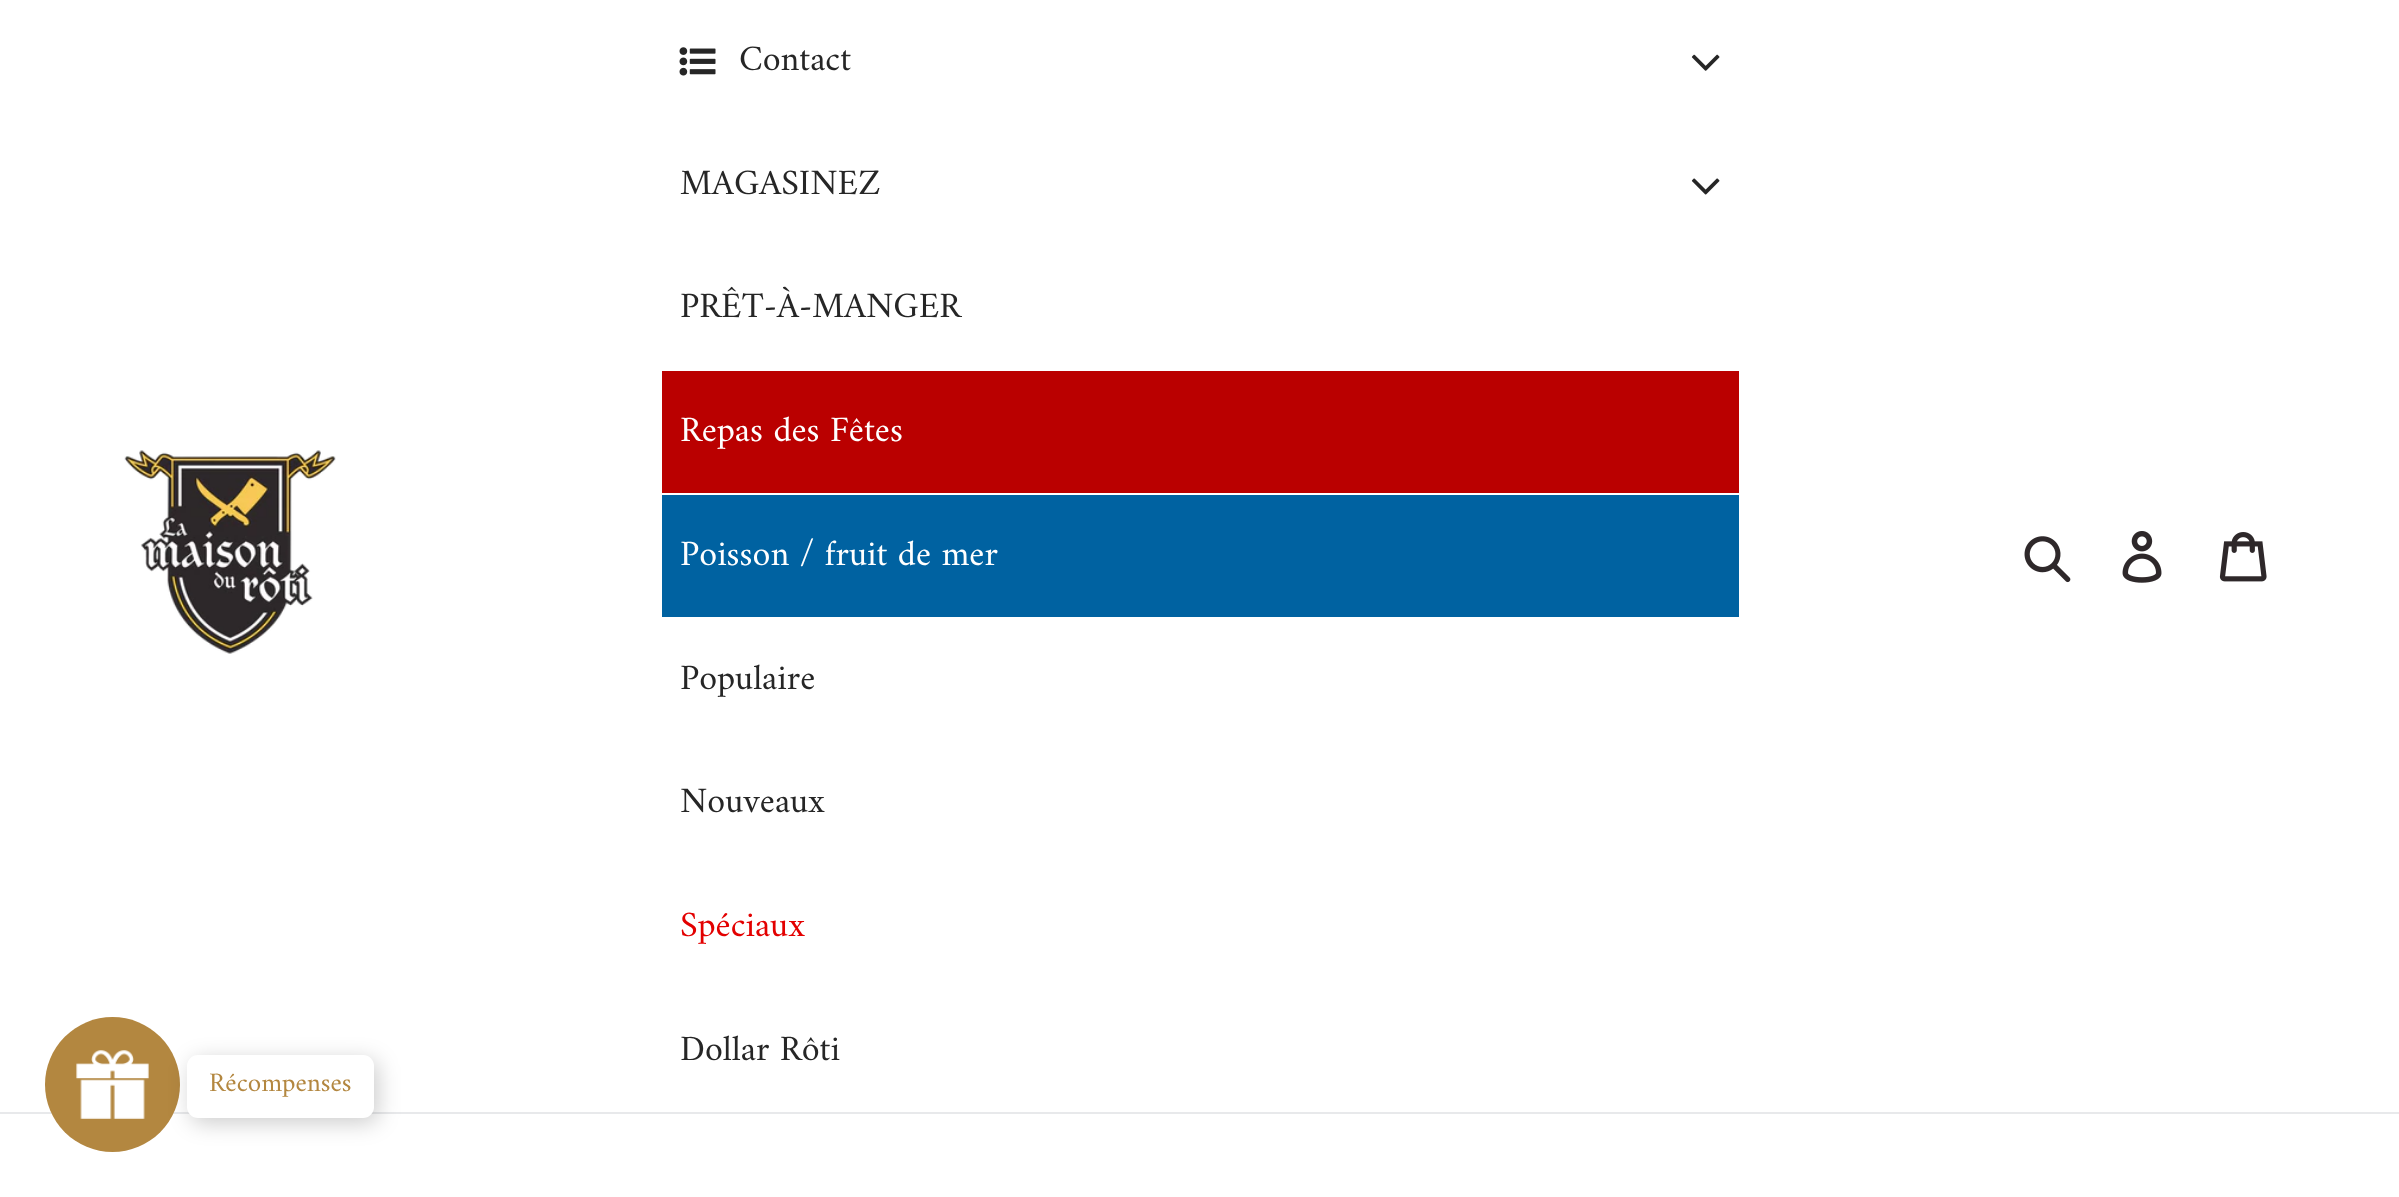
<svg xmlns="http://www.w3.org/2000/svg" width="2399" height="1197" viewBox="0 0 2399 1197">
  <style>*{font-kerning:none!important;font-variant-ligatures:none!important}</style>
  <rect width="100%" height="100%" fill="#fff"/>
  <path d="M0 1112h2399v2H0z" fill="#e8e9eb"/>
  <image x="124" y="450" width="212" height="204" href="img/1.png"/>
  <image x="679" y="47" width="37" height="29" href="img/2.png"/>
  <image x="1691" y="54" width="29" height="17" href="img/3.png"/>
  <image x="1691" y="178" width="29" height="17" href="img/4.png"/>
  <path d="M662 371h1077v122H662z" fill="#ba0000"/>
  <path d="M662 495h1077v122H662z" fill="#0062a1"/>
  <image x="2024" y="536" width="47" height="47" href="img/5.png"/>
  <image x="2122" y="531" width="40" height="52" href="img/6.png"/>
  <image x="2219" y="532" width="48" height="50" href="img/7.png"/>
  <circle cx="112.5" cy="1084.5" r="67.5" fill="#b38740"/>
  <image x="76" y="1050" width="73" height="69" href="img/8.png"/>
  <rect x="191" y="1060" width="187" height="63" rx="11" fill="#00000033" filter="blur(11px)"/>
  <rect x="187" y="1055" width="187" height="63" rx="11" fill="#fff"/>
  <g font-family="Amiri" font-size="36" fill="#262626">
    <text x="739" y="70">Contact</text>
    <text x="680" y="194">MAGASINEZ</text>
    <text x="680" y="317">PRÊT-À-MANGER</text>
  </g>
  <g font-family="Amiri" font-size="36" fill="#fff">
    <text x="680" y="441">Repas des Fêtes</text>
    <text x="680" y="565">Poisson / fruit de mer</text>
  </g>
  <g font-family="Amiri" font-size="36" fill="#262626">
    <text x="680" y="689">Populaire</text>
    <text x="680" y="812">Nouveaux</text>
  </g>
  <text x="680" y="936" font-family="Amiri" font-size="36" fill="#e30000">Spéciaux</text>
  <text x="680" y="1060" font-family="Amiri" font-size="36" fill="#262626">Dollar Rôti</text>
  <text x="209" y="1091" font-family="Amiri" font-size="27" fill="#b38740">Récompenses</text>
</svg>
